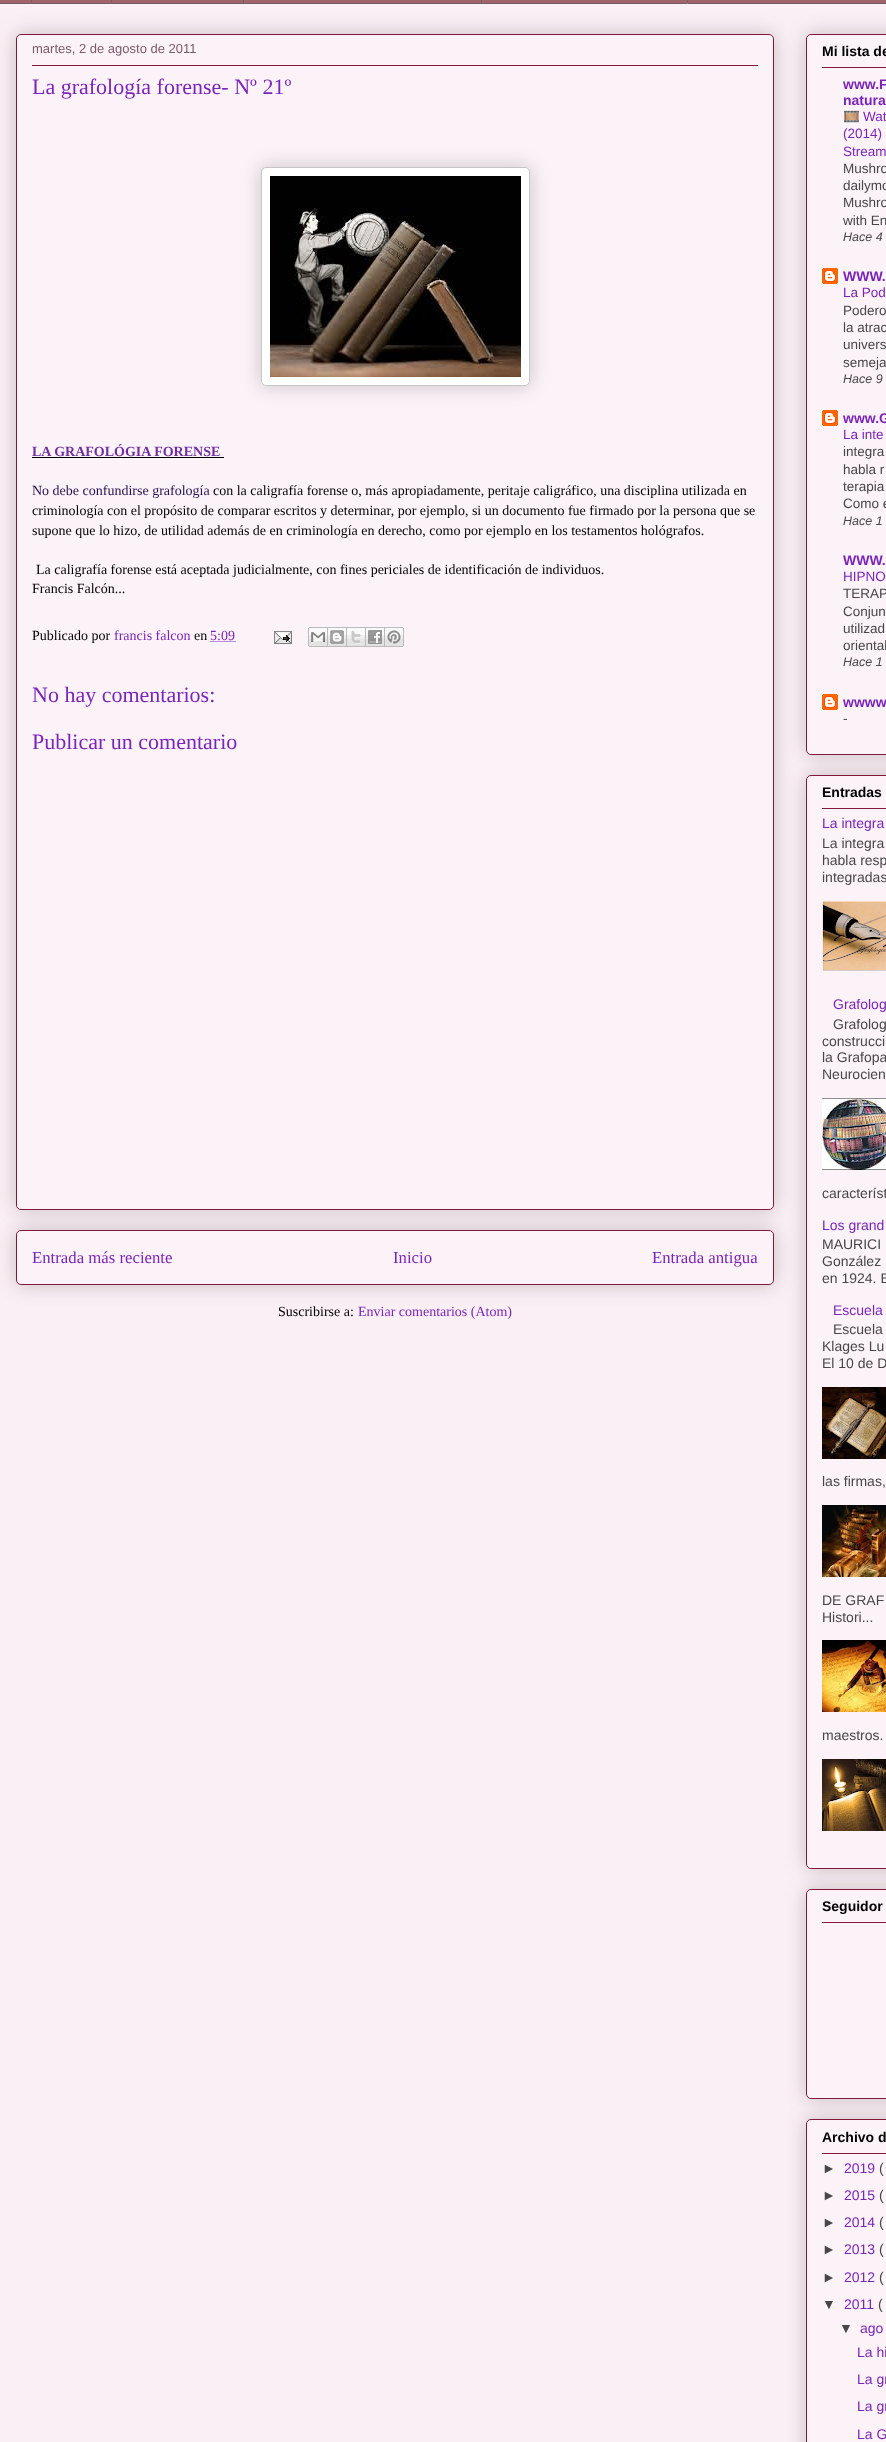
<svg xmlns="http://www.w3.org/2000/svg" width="886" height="2442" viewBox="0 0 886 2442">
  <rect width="100%" height="100%" fill="#faeff4"/>
  <path d="M0 0h886v3H0z" fill="#9f6465"/>
  <path d="M31 0h1v4H31z" fill="#7c5b69"/>
  <path d="M111 0h1v4H111z" fill="#7c5b69"/>
  <path d="M243 0h1v4H243z" fill="#7c5b69"/>
  <path d="M481 0h1v4H481z" fill="#7c5b69"/>
  <path d="M687.5 -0.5h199v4H687.5z" fill="none" stroke="#7c5b69"/>
  <path d="M0 3h687v1H0z" fill="#7c5b69"/>
  <rect x="16" y="1230" width="758" height="55" rx="5" fill="#00000033" filter="blur(10px)"/>
  <rect x="16.5" y="1230.5" width="757" height="54" rx="4.5" fill="#fcf3f9" stroke="#83193a"/>
  <rect x="16" y="34" width="758" height="1176" rx="5" fill="#00000033" filter="blur(10px)"/>
  <rect x="16.5" y="34.5" width="757" height="1175" rx="4.5" fill="#fcf3f9" stroke="#83193a"/>
  <path d="M32 65h726v1H32z" fill="#83193a"/>
  <rect x="261" y="167" width="269" height="219" rx="5" fill="#00000033" filter="blur(10px)"/>
  <rect x="261.5" y="167.5" width="268" height="218" rx="4.5" fill="#fff" stroke="#c6c6c6"/>
  <image x="270" y="176" width="251" height="201" href="img/1.png"/>
  <path d="M32 457h192v1H32z" fill="#000"/>
  <path d="M210.5 641.5H235.5" fill="none" stroke="#7b24b9" stroke-dasharray="1 1"/>
  <image x="274" y="631" width="18" height="13" href="img/2.png"/>
  <image x="308" y="627" width="20" height="20" href="img/3.png"/>
  <image x="328" y="627" width="19" height="20" href="img/4.png"/>
  <image x="347" y="627" width="19" height="20" href="img/5.png"/>
  <image x="366" y="627" width="19" height="20" href="img/6.png"/>
  <image x="385" y="627" width="19" height="20" href="img/7.png"/>
  <rect x="806" y="34" width="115" height="721" rx="5" fill="#00000033" filter="blur(10px)"/>
  <rect x="806.5" y="34.5" width="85" height="720" rx="4.5" fill="#fcf3f9" stroke="#83193a"/>
  <path d="M822 67h64v1H822z" fill="#83193a"/>
  <image x="822" y="268" width="16" height="16" href="img/8.png"/>
  <image x="822" y="410" width="16" height="16" href="img/8.png"/>
  <image x="822" y="694" width="16" height="16" href="img/8.png"/>
  <rect x="806" y="775" width="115" height="1094" rx="5" fill="#00000033" filter="blur(10px)"/>
  <rect x="806.5" y="775.5" width="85" height="1093" rx="4.5" fill="#fcf3f9" stroke="#83193a"/>
  <path d="M822 808h64v1H822z" fill="#83193a"/>
  <image x="822" y="901" width="64" height="70" href="img/9.png"/>
  <image x="822" y="1098" width="64" height="72" href="img/10.png"/>
  <image x="822" y="1387" width="64" height="72" href="img/11.png"/>
  <image x="822" y="1505" width="64" height="72" href="img/12.png"/>
  <image x="822" y="1640" width="64" height="72" href="img/13.png"/>
  <image x="822" y="1759" width="64" height="72" href="img/14.png"/>
  <rect x="806" y="1889" width="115" height="210" rx="5" fill="#00000033" filter="blur(10px)"/>
  <rect x="806.5" y="1889.5" width="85" height="209" rx="4.5" fill="#fcf3f9" stroke="#83193a"/>
  <path d="M822 1922h64v1H822z" fill="#83193a"/>
  <rect x="806" y="2119" width="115" height="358" rx="5" fill="#00000033" filter="blur(10px)"/>
  <rect x="806.5" y="2119.5" width="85" height="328" rx="4.5" fill="#fcf3f9" stroke="#83193a"/>
  <path d="M822 2153h64v1H822z" fill="#83193a"/>
  <text x="32" y="53" font-family="Liberation Sans" font-size="13" fill="#7c5b69">martes, 2 de agosto de 2011</text>
  <text x="32" y="94" font-family="Liberation Serif" font-size="22" fill="#7b24b9">La grafología forense- Nº 21º</text>
  <text x="32" y="456" font-family="Liberation Serif" font-size="14" font-weight="bold" fill="#7030a0">LA GRAFOLÓGIA FORENSE</text>
  <text x="32" y="495" font-family="Liberation Serif" font-size="14" fill="#20124d">No debe confundirse grafología</text>
  <g font-family="Liberation Serif" font-size="14" fill="#000">
    <text x="213" y="495">con la caligrafía forense o, más apropiadamente, peritaje caligráfico, una disciplina utilizada en</text>
    <text x="32" y="515">criminología con el propósito de comparar escritos y determinar, por ejemplo, si un documento fue firmado por la persona que se</text>
    <text x="32" y="535">supone que lo hizo, de utilidad además de en criminología en derecho, como por ejemplo en los testamentos hológrafos.</text>
    <text x="36" y="574">La caligrafía forense está aceptada judicialmente, con fines periciales de identificación de individuos.</text>
    <text x="32" y="593">Francis Falcón...</text>
    <text x="32" y="640">Publicado por</text>
  </g>
  <text x="114" y="640" font-family="Liberation Serif" font-size="14" fill="#7b24b9">francis falcon</text>
  <text x="194" y="640" font-family="Liberation Serif" font-size="14" fill="#000">en</text>
  <text x="210" y="640" font-family="Liberation Serif" font-size="14" fill="#7b24b9">5:09</text>
  <g font-family="Liberation Serif" font-size="22" fill="#7b24b9">
    <text x="32" y="702">No hay comentarios:</text>
    <text x="32" y="749">Publicar un comentario</text>
  </g>
  <g font-family="Liberation Serif" font-size="16.75" fill="#7b24b9">
    <text x="32" y="1263">Entrada más reciente</text>
    <text x="393" y="1263">Inicio</text>
    <text x="652" y="1263">Entrada antigua</text>
  </g>
  <text x="278" y="1316" font-family="Liberation Serif" font-size="14" fill="#000">Suscribirse a:</text>
  <text x="358" y="1316" font-family="Liberation Serif" font-size="14" fill="#7b24b9">Enviar comentarios (Atom)</text>
  <text x="822" y="56" font-family="Liberation Sans" font-size="14" font-weight="bold" fill="#000">Mi lista de</text>
  <g font-family="Liberation Sans" font-size="14" font-weight="bold" fill="#7b24b9">
    <text x="843" y="89">www.F</text>
    <text x="843" y="105">natura</text>
  </g>
  <text x="843" y="121" font-family="Noto Color Emoji" font-size="13.5" fill="#7b24b9">🎞️</text>
  <g font-family="Liberation Sans" font-size="13.5" fill="#7b24b9">
    <text x="863" y="121">Wat</text>
    <text x="843" y="138">(2014)</text>
    <text x="843" y="156">Stream</text>
  </g>
  <g font-family="Liberation Sans" font-size="13.5" fill="#474747">
    <text x="843" y="173">Mushro</text>
    <text x="843" y="190">dailymo</text>
    <text x="843" y="207">Mushro</text>
    <text x="843" y="225">with En</text>
  </g>
  <text x="843" y="241" font-family="Liberation Sans" font-size="12.5" font-style="italic" fill="#474747">Hace 4</text>
  <text x="843" y="281" font-family="Liberation Sans" font-size="14" font-weight="bold" fill="#7b24b9">WWW.</text>
  <text x="843" y="297" font-family="Liberation Sans" font-size="13.5" fill="#7b24b9">La Pod</text>
  <g font-family="Liberation Sans" font-size="13.5" fill="#474747">
    <text x="843" y="315">Podero</text>
    <text x="843" y="332">la atrac</text>
    <text x="843" y="349">univers</text>
    <text x="843" y="367">semeja</text>
  </g>
  <text x="843" y="383" font-family="Liberation Sans" font-size="12.5" font-style="italic" fill="#474747">Hace 9</text>
  <text x="843" y="423" font-family="Liberation Sans" font-size="14" font-weight="bold" fill="#7b24b9">www.G</text>
  <text x="843" y="439" font-family="Liberation Sans" font-size="13.5" fill="#7b24b9">La inte</text>
  <g font-family="Liberation Sans" font-size="13.5" fill="#474747">
    <text x="843" y="456">integra</text>
    <text x="843" y="474">habla r</text>
    <text x="843" y="491">terapia</text>
    <text x="843" y="508">Como e</text>
  </g>
  <text x="843" y="525" font-family="Liberation Sans" font-size="12.5" font-style="italic" fill="#474747">Hace 1</text>
  <text x="843" y="565" font-family="Liberation Sans" font-size="14" font-weight="bold" fill="#7b24b9">WWW.</text>
  <text x="843" y="581" font-family="Liberation Sans" font-size="13.5" fill="#7b24b9">HIPNO</text>
  <g font-family="Liberation Sans" font-size="13.5" fill="#474747">
    <text x="843" y="598">TERAP</text>
    <text x="843" y="616">Conjun</text>
    <text x="843" y="633">utilizad</text>
    <text x="843" y="650">oriental</text>
  </g>
  <text x="843" y="666" font-family="Liberation Sans" font-size="12.5" font-style="italic" fill="#474747">Hace 1</text>
  <text x="843" y="707" font-family="Liberation Sans" font-size="14" font-weight="bold" fill="#7b24b9">wwww</text>
  <text x="843" y="723" font-family="Liberation Sans" font-size="13.5" fill="#474747">-</text>
  <text x="822" y="797" font-family="Liberation Sans" font-size="14" font-weight="bold" fill="#000">Entradas</text>
  <text x="822" y="828" font-family="Liberation Sans" font-size="14" fill="#7b24b9">La integra</text>
  <g font-family="Liberation Sans" font-size="14" fill="#474747">
    <text x="822" y="848">La integra</text>
    <text x="822" y="865">habla resp</text>
    <text x="822" y="882">integradas</text>
  </g>
  <text x="833" y="1009" font-family="Liberation Sans" font-size="14" fill="#7b24b9">Grafolog</text>
  <g font-family="Liberation Sans" font-size="14" fill="#474747">
    <text x="833" y="1029">Grafolog</text>
    <text x="822" y="1046">construcci</text>
    <text x="822" y="1062">la Grafopa</text>
    <text x="822" y="1079">Neurocien</text>
    <text x="822" y="1198">característ</text>
  </g>
  <text x="822" y="1230" font-family="Liberation Sans" font-size="14" fill="#7b24b9">Los grand</text>
  <g font-family="Liberation Sans" font-size="14" fill="#474747">
    <text x="822" y="1249">MAURICI</text>
    <text x="822" y="1266">González</text>
    <text x="822" y="1283">en 1924. E</text>
  </g>
  <text x="833" y="1315" font-family="Liberation Sans" font-size="14" fill="#7b24b9">Escuela</text>
  <g font-family="Liberation Sans" font-size="14" fill="#474747">
    <text x="833" y="1334">Escuela</text>
    <text x="822" y="1351">Klages Lu</text>
    <text x="822" y="1368">El 10 de D</text>
    <text x="822" y="1486">las firmas,</text>
    <text x="822" y="1605">DE GRAF</text>
    <text x="822" y="1622">Histori...</text>
    <text x="822" y="1740">maestros.</text>
  </g>
  <g font-family="Liberation Sans" font-size="14" font-weight="bold" fill="#000">
    <text x="822" y="1911">Seguidor</text>
    <text x="822" y="2142">Archivo d</text>
  </g>
  <text x="822" y="2173" font-family="Liberation Sans" font-size="14" fill="#474747">►</text>
  <text x="844" y="2173" font-family="Liberation Sans" font-size="14" fill="#7b24b9">2019</text>
  <g font-family="Liberation Sans" font-size="14" fill="#474747">
    <text x="879" y="2173">(</text>
    <text x="822" y="2200">►</text>
  </g>
  <text x="844" y="2200" font-family="Liberation Sans" font-size="14" fill="#7b24b9">2015</text>
  <g font-family="Liberation Sans" font-size="14" fill="#474747">
    <text x="879" y="2200">(</text>
    <text x="822" y="2227">►</text>
  </g>
  <text x="844" y="2227" font-family="Liberation Sans" font-size="14" fill="#7b24b9">2014</text>
  <g font-family="Liberation Sans" font-size="14" fill="#474747">
    <text x="879" y="2227">(</text>
    <text x="822" y="2254">►</text>
  </g>
  <text x="844" y="2254" font-family="Liberation Sans" font-size="14" fill="#7b24b9">2013</text>
  <g font-family="Liberation Sans" font-size="14" fill="#474747">
    <text x="879" y="2254">(</text>
    <text x="822" y="2282">►</text>
  </g>
  <text x="844" y="2282" font-family="Liberation Sans" font-size="14" fill="#7b24b9">2012</text>
  <g font-family="Liberation Sans" font-size="14" fill="#474747">
    <text x="879" y="2282">(</text>
    <text x="822" y="2309">▼</text>
  </g>
  <text x="844" y="2309" font-family="Liberation Sans" font-size="14" fill="#7b24b9">2011</text>
  <g font-family="Liberation Sans" font-size="14" fill="#474747">
    <text x="878" y="2309">(</text>
    <text x="839" y="2333">▼</text>
  </g>
  <g font-family="Liberation Sans" font-size="14" fill="#7b24b9">
    <text x="860" y="2333">ago</text>
    <text x="857" y="2357">La hi</text>
    <text x="857" y="2384">La gr</text>
    <text x="857" y="2411">La gr</text>
    <text x="857" y="2439">La G</text>
  </g>
</svg>
